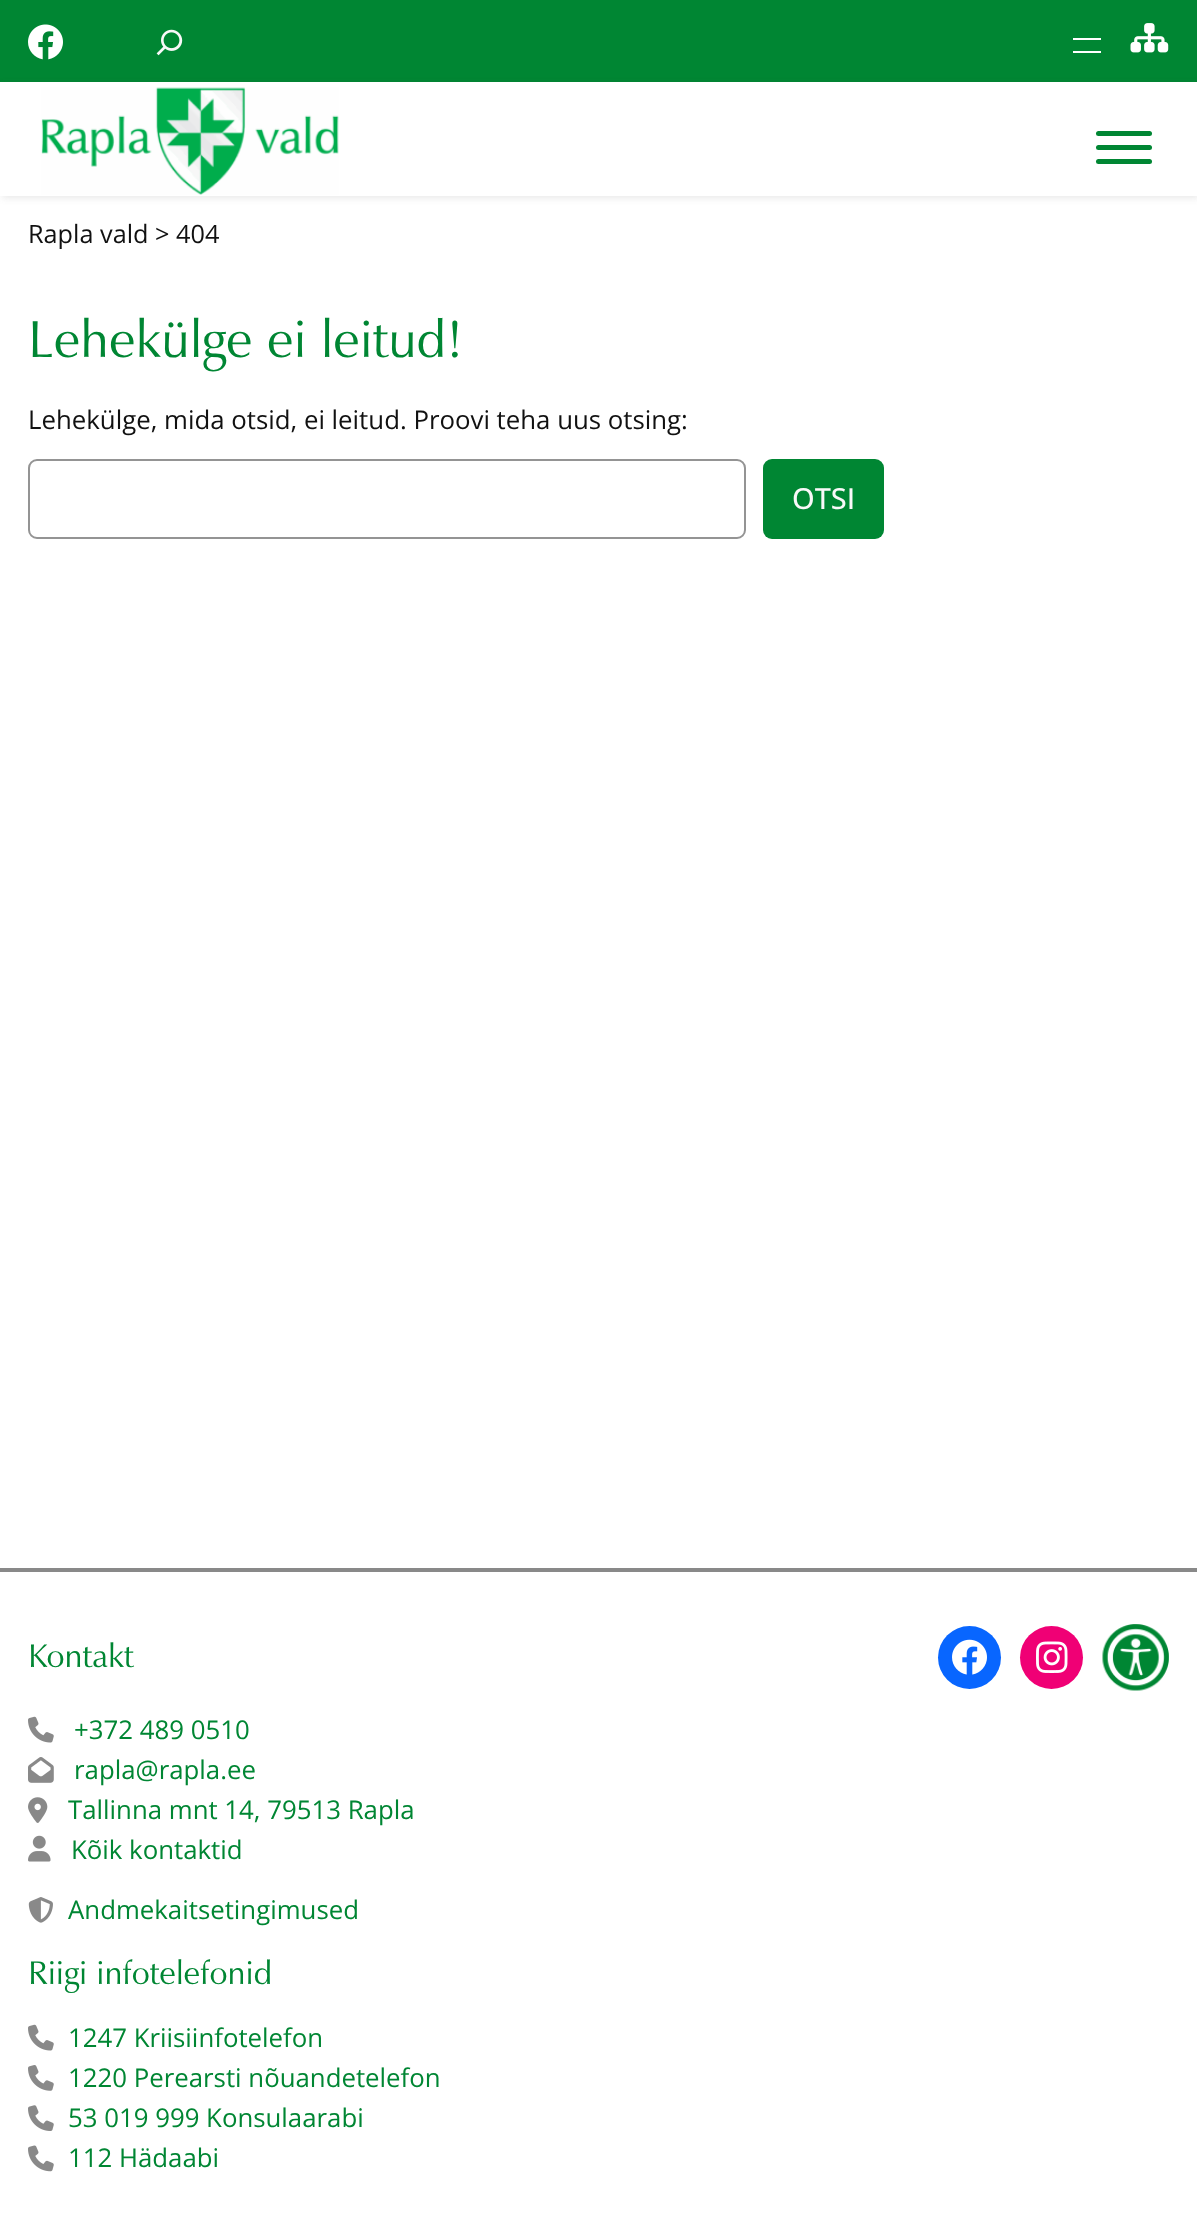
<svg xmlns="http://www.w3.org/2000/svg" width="1197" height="2222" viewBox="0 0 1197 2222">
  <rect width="100%" height="100%" fill="#fff"/>
  <path d="M0 0h1197v82H0z" fill="#008633"/>
  <image x="28" y="24" width="35" height="36" href="img/1.png"/>
  <image x="156" y="29" width="27" height="27" href="img/2.png"/>
  <path d="M1073 38h28v2H1073z" fill="#fff"/>
  <path d="M1073 51h28v2H1073z" fill="#fff"/>
  <image x="1130" y="23" width="39" height="30" href="img/3.png"/>
  <path d="M2 84h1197v114H2z" fill="#4242421f" filter="blur(3.5px)"/>
  <path d="M0 82h1197v114H0z" fill="#fff"/>
  <image x="41" y="87" width="298" height="108" href="img/4.png"/>
  <rect x="1096" y="131" width="56" height="5" rx="2.5" fill="#008633"/>
  <rect x="1096" y="145" width="56" height="5" rx="2.5" fill="#008633"/>
  <rect x="1096" y="159" width="56" height="5" rx="2.5" fill="#008633"/>
  <rect x="29" y="460" width="716" height="78" rx="8" fill="none" stroke="#949494" stroke-width="2"/>
  <rect x="763" y="459" width="121" height="80" rx="9" fill="#008633"/>
  <path d="M0 1568h1197v4H0z" fill="#898989"/>
  <circle cx="969.5" cy="1657.5" r="31.5" fill="#0866ff"/>
  <image x="952" y="1639" width="35" height="36" href="img/5.png"/>
  <circle cx="1051.5" cy="1657.5" r="31.5" fill="#f00075"/>
  <image x="1036" y="1641" width="32" height="32" href="img/6.png"/>
  <image x="1102" y="1624" width="67" height="67" href="img/7.png"/>
  <image x="28" y="1716" width="26" height="27" href="img/8.png"/>
  <image x="28" y="1757" width="26" height="26" href="img/9.png"/>
  <image x="28" y="1797" width="20" height="26" href="img/10.png"/>
  <image x="28" y="1835" width="23" height="27" href="img/11.png"/>
  <image x="28" y="1897" width="25" height="26" href="img/12.png"/>
  <image x="28" y="2024" width="26" height="27" href="img/8.png"/>
  <image x="28" y="2065" width="26" height="26" href="img/13.png"/>
  <image x="28" y="2105" width="26" height="26" href="img/14.png"/>
  <image x="28" y="2145" width="26" height="27" href="img/15.png"/>
  <text x="28" y="243" font-family="Open Sans" font-size="25.25" fill="#111">Rapla vald &gt; 404</text>
  <text x="28" y="357" font-family="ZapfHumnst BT" font-size="52.5" fill="#008633">Lehekülge ei leitud!</text>
  <text x="28" y="429" font-family="Open Sans" font-size="25.8" fill="#111">Lehekülge, mida otsid, ei leitud. Proovi teha uus otsing:</text>
  <text x="792" y="509" font-family="Open Sans" font-size="29" font-weight="500" fill="#f9f9f9">OTSI</text>
  <text x="28" y="1667" font-family="ZapfHumnst BT" font-size="33" fill="#008633">Kontakt</text>
  <g font-family="Open Sans" font-size="25.8" fill="#008633">
    <text x="74" y="1739">+372 489 0510</text>
    <text x="74" y="1779">rapla@rapla.ee</text>
    <text x="68" y="1819">Tallinna mnt 14, 79513 Rapla</text>
    <text x="71" y="1859">Kõik kontaktid</text>
    <text x="68" y="1919">Andmekaitsetingimused</text>
  </g>
  <text x="28" y="1984" font-family="ZapfHumnst BT" font-size="33" fill="#008633">Riigi infotelefonid</text>
  <g font-family="Open Sans" font-size="25.8" fill="#008633">
    <text x="68" y="2047">1247 Kriisiinfotelefon</text>
    <text x="68" y="2087">1220 Perearsti nõuandetelefon</text>
    <text x="68" y="2127">53 019 999 Konsulaarabi</text>
    <text x="68" y="2167">112 Hädaabi</text>
  </g>
</svg>
